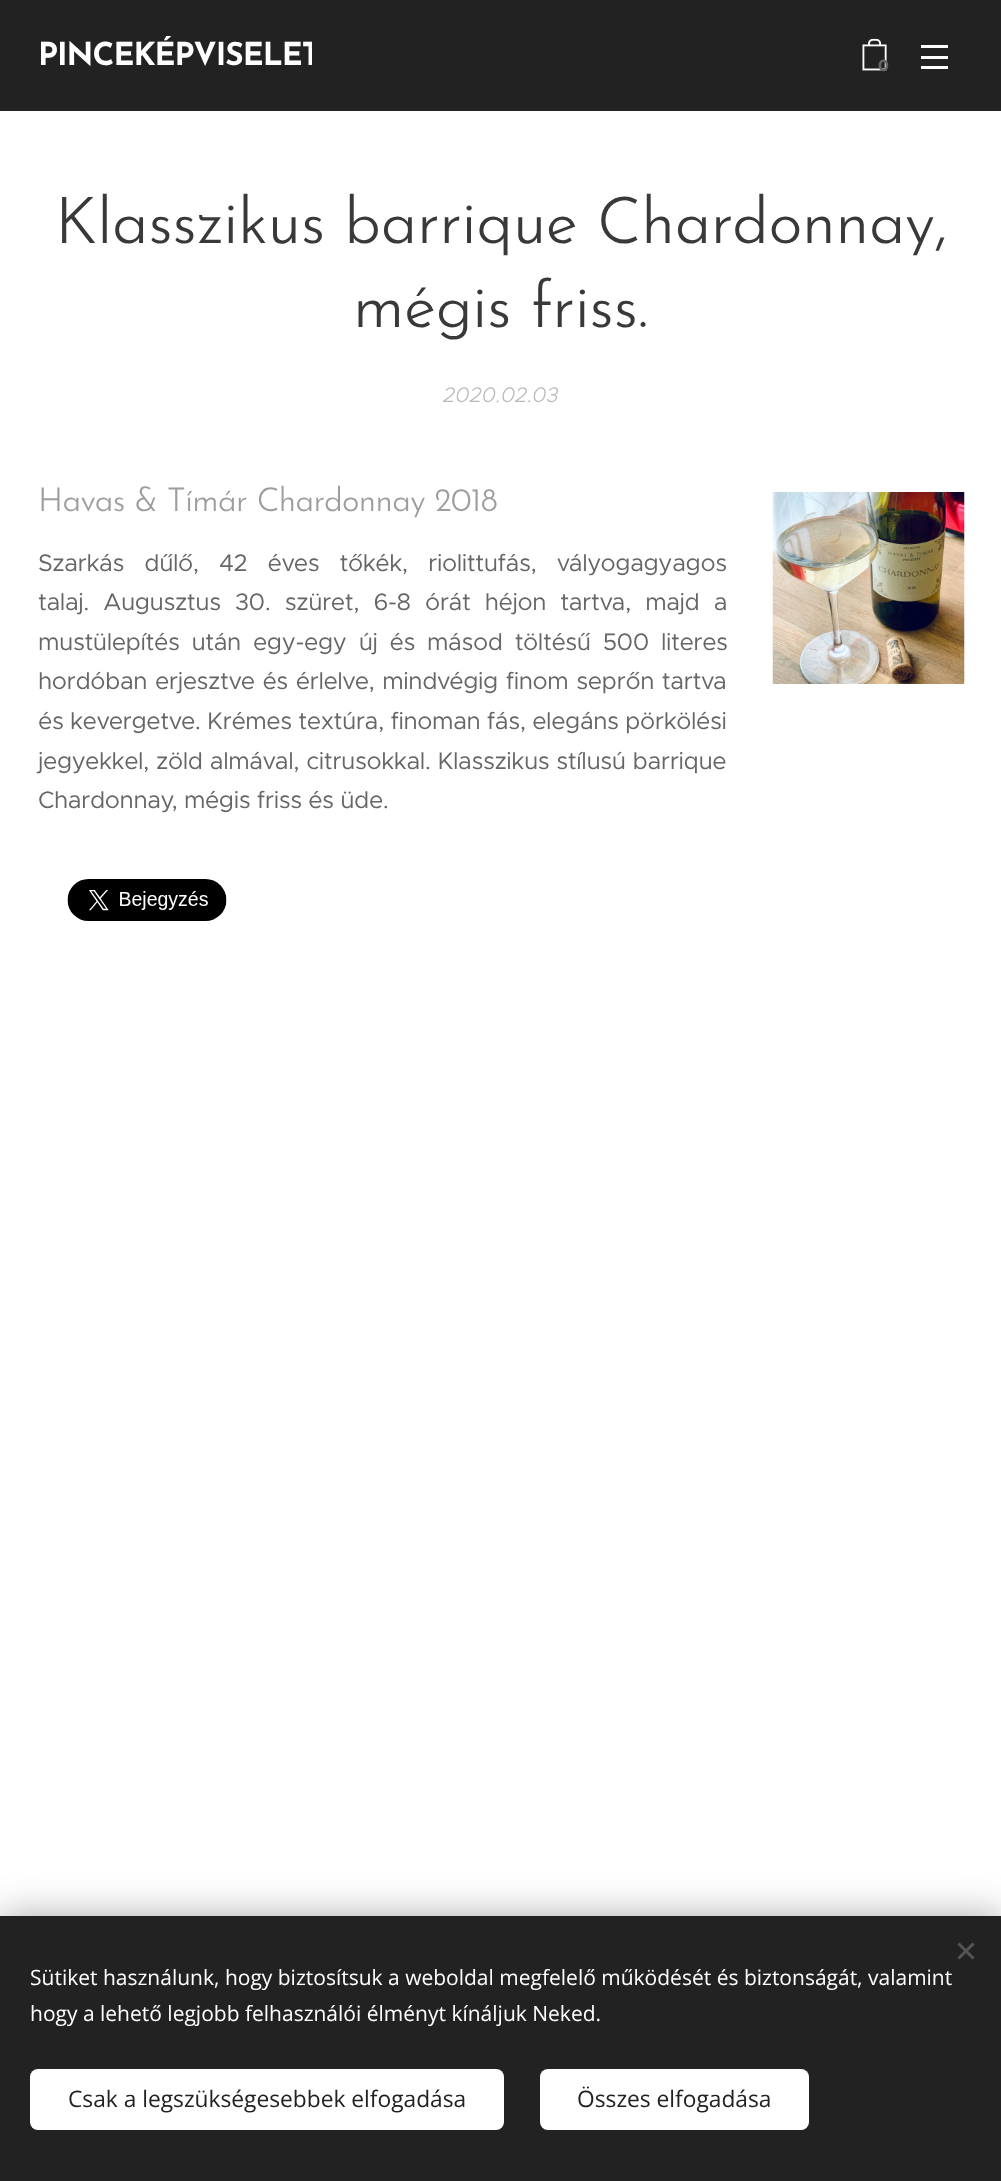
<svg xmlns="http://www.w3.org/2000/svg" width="1001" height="2181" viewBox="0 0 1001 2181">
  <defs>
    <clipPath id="clip1"><path d="M32 32h280v48H32z"/></clipPath>
  </defs>
  <rect width="100%" height="100%" fill="#fff"/>
  <path d="M0 0h1001v111H0z" fill="#222"/>
  <image x="862" y="38" width="25" height="33" href="img/1.png"/>
  <path d="M921 56h27v3H921z" fill="#fff"/>
  <path d="M921 45h27v3H921z" fill="#fff"/>
  <path d="M921 66h27v3H921z" fill="#fff"/>
  <image x="772" y="492" width="193" height="192" href="img/2.png"/>
  <image x="67" y="879" width="160" height="42" href="img/3.png"/>
  <path d="M0 1916h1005v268H0z" fill="#00000054" filter="blur(19px)"/>
  <path d="M0 1916h1001v265H0z" fill="#222"/>
  <path d="M957.5 1957.5L972.5 1942.5L974.5 1944.5L959.5 1959.5Z" fill="#555"/>
  <path d="M959.5 1942.5L974.5 1957.5L972.5 1959.5L957.5 1944.5Z" fill="#555"/>
  <rect x="30" y="2069" width="474" height="61" rx="8" fill="#fff"/>
  <rect x="540" y="2069" width="269" height="61" rx="8" fill="#fff"/>
  <g clip-path="url(#clip1)">
    <text x="38" y="65" font-family="Josefin Sans" font-size="31.5" font-weight="bold" letter-spacing="-1" fill="#fff">PINCEKÉPVISELET</text>
  </g>
  <text x="878" y="71" font-family="Montserrat" font-size="16" font-weight="bold" fill="#666">0</text>
  <g font-family="Josefin Sans" font-size="64.5" font-weight="300" letter-spacing="-0.4" fill="#393939">
    <text x="55" y="243">Klasszikus barrique Chardonnay,</text>
    <text x="353" y="327">mégis friss.</text>
  </g>
  <text x="443" y="402" font-family="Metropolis" font-size="21" font-weight="300" font-style="italic" fill="#bababa">2020.02.03</text>
  <text x="38" y="511" font-family="Josefin Sans" font-size="33" font-weight="300" letter-spacing="-0.65" fill="#9d9d9d">Havas &amp; Tímár Chardonnay 2018</text>
  <g font-family="Metropolis" font-size="24" letter-spacing="-0.4" fill="#666">
    <text x="38" y="571" word-spacing="13.75">Szarkás dűlő, 42 éves tőkék, riolittufás, vályogagyagos</text>
    <text x="38" y="610" word-spacing="7.75">talaj. Augusztus 30. szüret, 6-8 órát héjon tartva, majd a</text>
    <text x="38" y="650" word-spacing="5.5">mustülepítés után egy-egy új és másod töltésű 500 literes</text>
    <text x="38" y="689" word-spacing="1.25">hordóban erjesztve és érlelve, mindvégig finom seprőn tartva</text>
    <text x="38" y="729">és kevergetve. Krémes textúra, finoman fás, elegáns pörkölési</text>
    <text x="38" y="769" word-spacing="0.5">jegyekkel, zöld almával, citrusokkal. Klasszikus stílusú barrique</text>
    <text x="38" y="808">Chardonnay, mégis friss és üde.</text>
  </g>
  <g font-family="Open Sans" font-size="21" fill="#fff">
    <text x="30" y="1985">Sütiket használunk, hogy biztosítsuk a weboldal megfelelő működését és biztonságát, valamint</text>
    <text x="30" y="2021">hogy a lehető legjobb felhasználói élményt kínáljuk Neked.</text>
  </g>
  <g font-family="Open Sans" font-size="22.75" fill="#222">
    <text x="68" y="2107">Csak a legszükségesebbek elfogadása</text>
    <text x="577" y="2107">Összes elfogadása</text>
  </g>
</svg>
